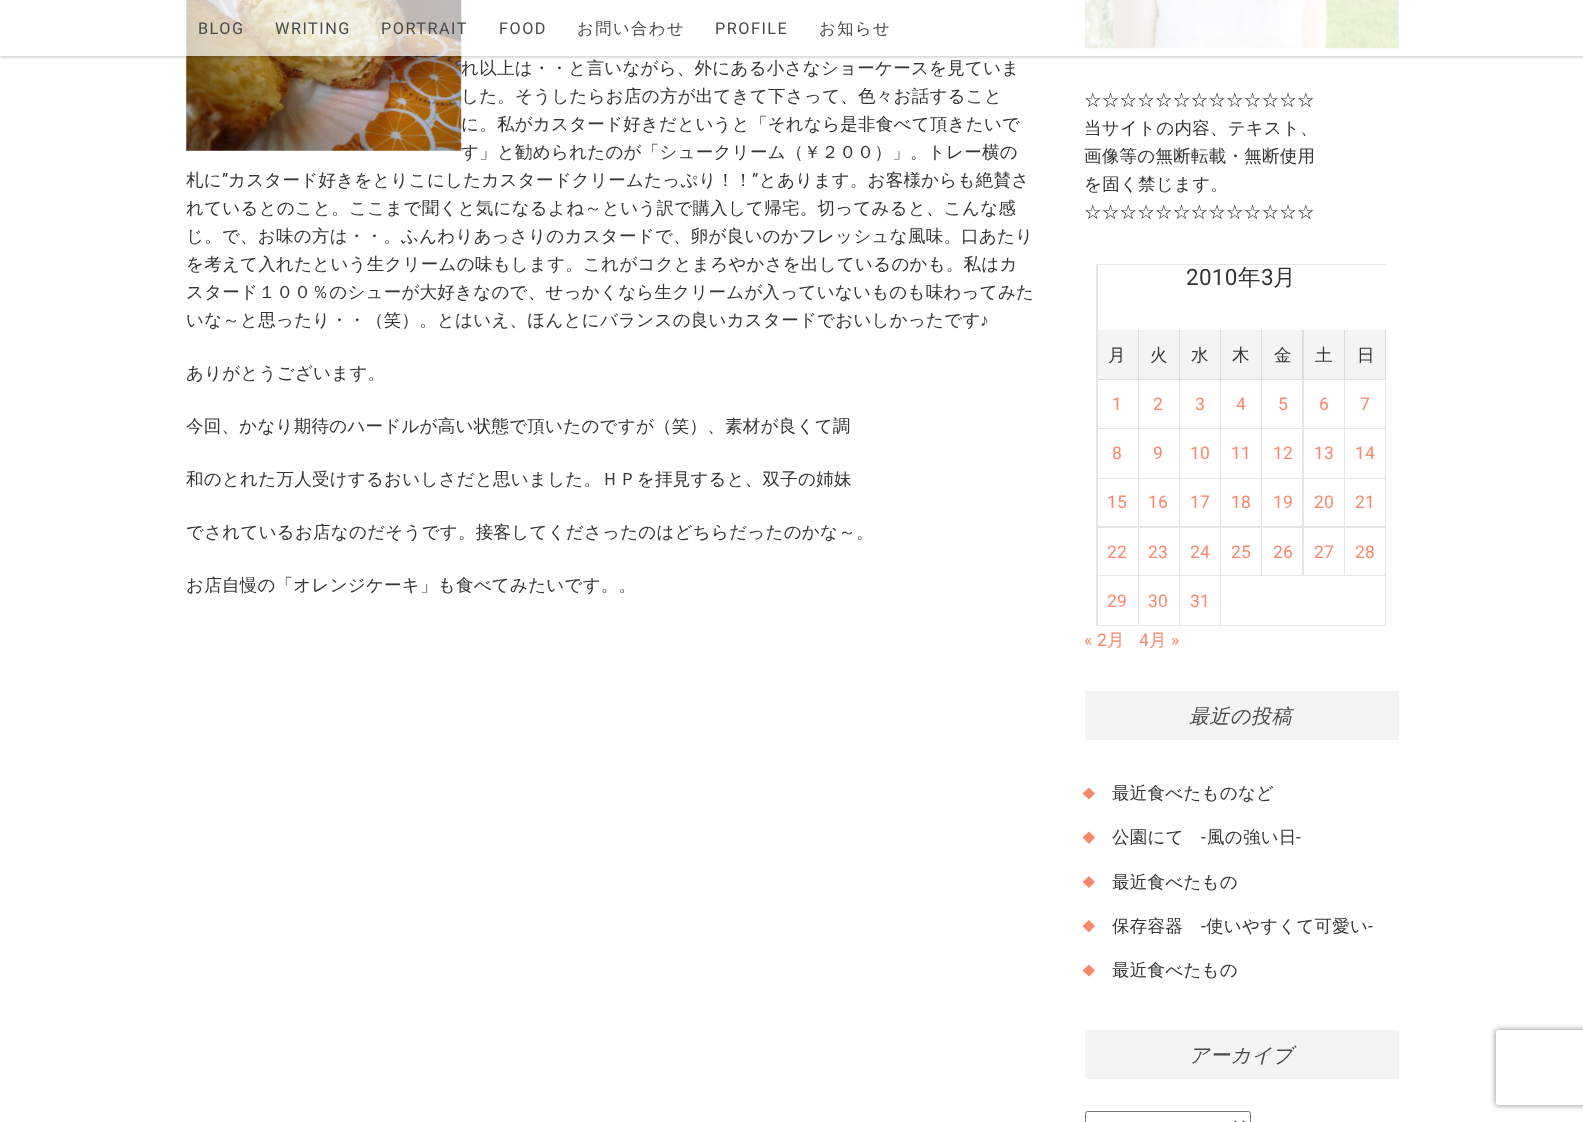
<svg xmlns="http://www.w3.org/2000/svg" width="1583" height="1122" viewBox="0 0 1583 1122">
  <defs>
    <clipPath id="clip1"><path d="M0 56h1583v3H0z"/></clipPath>
    <clipPath id="clip2"><path d="M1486 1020H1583V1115H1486ZM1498.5 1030H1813.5C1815 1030 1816 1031 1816 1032.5V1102.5C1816 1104 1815 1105 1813.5 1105H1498.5C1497 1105 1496 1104 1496 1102.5V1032.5C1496 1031 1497 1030 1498.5 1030Z" clip-rule="evenodd"/></clipPath>
  </defs>
  <rect width="100%" height="100%" fill="#fff"/>
  <image x="186" y="0" width="276" height="151" href="img/1.png"/>
  <image x="1085" y="0" width="314" height="49" href="img/2.png"/>
  <g clip-path="url(#clip1)">
    <path d="M0 1h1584v57H0z" fill="#00000026" filter="blur(1px)"/>
  </g>
  <path d="M186 0h1213v56H186z" fill="#ffffffb3"/>
  <path d="M1096 264H1386V265H1098Z" fill="#e6e6e6"/>
  <path d="M1096 626V264L1098 265V626Z" fill="#0000001a"/>
  <path d="M1098 330h288v50H1098z" fill="#f4f4f4"/>
  <path d="M1139 330V380L1138 379V330Z" fill="#dcdcdc"/>
  <path d="M1139 380H1098V379H1138Z" fill="#0000001a"/>
  <path d="M1180 330V380L1179 379V330Z" fill="#dcdcdc"/>
  <path d="M1180 380H1139V379H1179Z" fill="#0000001a"/>
  <path d="M1221 330V380L1220 379V330Z" fill="#dcdcdc"/>
  <path d="M1221 380H1180V379H1220Z" fill="#0000001a"/>
  <path d="M1262 330V380L1261 379V330Z" fill="#dcdcdc"/>
  <path d="M1262 380H1221V379H1261Z" fill="#0000001a"/>
  <path d="M1304 330V380L1302 379V330Z" fill="#dcdcdc"/>
  <path d="M1304 380H1262V379H1302Z" fill="#0000001a"/>
  <path d="M1345 330V380L1344 379V330Z" fill="#dcdcdc"/>
  <path d="M1345 380H1304V379H1344Z" fill="#0000001a"/>
  <path d="M1386 330V380L1385 379V330Z" fill="#dcdcdc"/>
  <path d="M1386 380H1345V379H1385Z" fill="#0000001a"/>
  <path d="M1139 380V429L1138 428V380Z" fill="#e6e6e6"/>
  <path d="M1139 429H1098V428H1138Z" fill="#0000001a"/>
  <path d="M1180 380V429L1179 428V380Z" fill="#e6e6e6"/>
  <path d="M1180 429H1139V428H1179Z" fill="#0000001a"/>
  <path d="M1221 380V429L1220 428V380Z" fill="#e6e6e6"/>
  <path d="M1221 429H1180V428H1220Z" fill="#0000001a"/>
  <path d="M1262 380V429L1261 428V380Z" fill="#e6e6e6"/>
  <path d="M1262 429H1221V428H1261Z" fill="#0000001a"/>
  <path d="M1304 380V429L1302 428V380Z" fill="#e6e6e6"/>
  <path d="M1304 429H1262V428H1302Z" fill="#0000001a"/>
  <path d="M1345 380V429L1344 428V380Z" fill="#e6e6e6"/>
  <path d="M1345 429H1304V428H1344Z" fill="#0000001a"/>
  <path d="M1386 380V429L1385 428V380Z" fill="#e6e6e6"/>
  <path d="M1386 429H1345V428H1385Z" fill="#0000001a"/>
  <path d="M1139 429V479L1138 478V429Z" fill="#e6e6e6"/>
  <path d="M1139 479H1098V478H1138Z" fill="#0000001a"/>
  <path d="M1180 429V479L1179 478V429Z" fill="#e6e6e6"/>
  <path d="M1180 479H1139V478H1179Z" fill="#0000001a"/>
  <path d="M1221 429V479L1220 478V429Z" fill="#e6e6e6"/>
  <path d="M1221 479H1180V478H1220Z" fill="#0000001a"/>
  <path d="M1262 429V479L1261 478V429Z" fill="#e6e6e6"/>
  <path d="M1262 479H1221V478H1261Z" fill="#0000001a"/>
  <path d="M1304 429V479L1302 478V429Z" fill="#e6e6e6"/>
  <path d="M1304 479H1262V478H1302Z" fill="#0000001a"/>
  <path d="M1345 429V479L1344 478V429Z" fill="#e6e6e6"/>
  <path d="M1345 479H1304V478H1344Z" fill="#0000001a"/>
  <path d="M1386 429V479L1385 478V429Z" fill="#e6e6e6"/>
  <path d="M1386 479H1345V478H1385Z" fill="#0000001a"/>
  <path d="M1139 479V528L1138 526V479Z" fill="#e6e6e6"/>
  <path d="M1139 528H1098V526H1138Z" fill="#0000001a"/>
  <path d="M1180 479V528L1179 526V479Z" fill="#e6e6e6"/>
  <path d="M1180 528H1139V526H1179Z" fill="#0000001a"/>
  <path d="M1221 479V528L1220 526V479Z" fill="#e6e6e6"/>
  <path d="M1221 528H1180V526H1220Z" fill="#0000001a"/>
  <path d="M1262 479V528L1261 526V479Z" fill="#e6e6e6"/>
  <path d="M1262 528H1221V526H1261Z" fill="#0000001a"/>
  <path d="M1304 479V528L1302 526V479Z" fill="#e6e6e6"/>
  <path d="M1304 528H1262V526H1302Z" fill="#0000001a"/>
  <path d="M1345 479V528L1344 526V479Z" fill="#e6e6e6"/>
  <path d="M1345 528H1304V526H1344Z" fill="#0000001a"/>
  <path d="M1386 479V528L1385 526V479Z" fill="#e6e6e6"/>
  <path d="M1386 528H1345V526H1385Z" fill="#0000001a"/>
  <path d="M1139 528V576L1138 575V528Z" fill="#e6e6e6"/>
  <path d="M1139 576H1098V575H1138Z" fill="#0000001a"/>
  <path d="M1180 528V576L1179 575V528Z" fill="#e6e6e6"/>
  <path d="M1180 576H1139V575H1179Z" fill="#0000001a"/>
  <path d="M1221 528V576L1220 575V528Z" fill="#e6e6e6"/>
  <path d="M1221 576H1180V575H1220Z" fill="#0000001a"/>
  <path d="M1262 528V576L1261 575V528Z" fill="#e6e6e6"/>
  <path d="M1262 576H1221V575H1261Z" fill="#0000001a"/>
  <path d="M1304 528V576L1302 575V528Z" fill="#e6e6e6"/>
  <path d="M1304 576H1262V575H1302Z" fill="#0000001a"/>
  <path d="M1345 528V576L1344 575V528Z" fill="#e6e6e6"/>
  <path d="M1345 576H1304V575H1344Z" fill="#0000001a"/>
  <path d="M1386 528V576L1385 575V528Z" fill="#e6e6e6"/>
  <path d="M1386 576H1345V575H1385Z" fill="#0000001a"/>
  <path d="M1139 576V626L1138 625V576Z" fill="#e6e6e6"/>
  <path d="M1139 626H1098V625H1138Z" fill="#0000001a"/>
  <path d="M1180 576V626L1179 625V576Z" fill="#e6e6e6"/>
  <path d="M1180 626H1139V625H1179Z" fill="#0000001a"/>
  <path d="M1221 576V626L1220 625V576Z" fill="#e6e6e6"/>
  <path d="M1221 626H1180V625H1220Z" fill="#0000001a"/>
  <path d="M1386 576V626L1385 625V576Z" fill="#e6e6e6"/>
  <path d="M1386 626H1221V625H1385Z" fill="#0000001a"/>
  <path d="M1085 691h314v49H1085z" fill="#f4f4f4"/>
  <path d="M1089 787.5L1095 793.5L1089 799.5L1082.5 793.5Z" fill="#fb876b"/>
  <path d="M1089 831.5L1095 837.5L1089 844L1082.5 837.5Z" fill="#fb876b"/>
  <path d="M1089 876L1095 882L1089 888L1082.5 882Z" fill="#fb876b"/>
  <path d="M1089 920L1095 926L1089 932.5L1082.5 926Z" fill="#fb876b"/>
  <path d="M1089 964.5L1095 970.5L1089 976.5L1082.5 970.5Z" fill="#fb876b"/>
  <path d="M1085 1030h314v49H1085z" fill="#f4f4f4"/>
  <rect x="1085.5" y="1111.5" width="165" height="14" rx="2" fill="none" stroke="#767676"/>
  <path d="M1234.5 1121.5L1239.5 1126.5L1244.5 1121.5" fill="none" stroke="#343434" stroke-width="2.5"/>
  <g clip-path="url(#clip2)">
    <rect x="1496" y="1030" width="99" height="75" rx="2.5" fill="#808080" filter="blur(3px)"/>
  </g>
  <g font-family="Roboto" font-size="16.25" letter-spacing="1.5" fill="#484848">
    <text x="198" y="34">BLOG</text>
    <text x="275" y="34">WRITING</text>
    <text x="381" y="34">PORTRAIT</text>
    <text x="499" y="34">FOOD</text>
  </g>
  <text x="577" y="34" font-family="WenQuanYi Zen Hei" font-size="16.25" font-weight="500" letter-spacing="1.5" fill="#484848">お問い合わせ</text>
  <text x="715" y="34" font-family="Roboto" font-size="16.25" letter-spacing="1.5" fill="#484848">PROFILE</text>
  <text x="819" y="34" font-family="WenQuanYi Zen Hei" font-size="16.25" font-weight="500" letter-spacing="1.5" fill="#484848">お知らせ</text>
  <g font-family="WenQuanYi Zen Hei" font-size="17.5" font-weight="500" letter-spacing="0.25" fill="#343434">
    <text x="461" y="74">れ以上は・・と言いながら、外にある小さなショーケースを見ていま</text>
    <text x="461" y="102">した。そうしたらお店の方が出てきて下さって、色々お話すること</text>
    <text x="461" y="130">に。私がカスタード好きだというと「それなら是非食べて頂きたいで</text>
    <text x="461" y="158">す」と勧められたのが「シュークリーム（￥２００）」。トレー横の</text>
    <text x="186" y="186">札に</text>
  </g>
  <text x="222" y="186" font-family="Roboto" font-size="17.5" letter-spacing="0.25" fill="#343434">”</text>
  <text x="228" y="186" font-family="WenQuanYi Zen Hei" font-size="17.5" font-weight="500" letter-spacing="0.25" fill="#343434">カスタード好きをとりこにしたカスタードクリームたっぷり！！</text>
  <text x="752" y="186" font-family="Roboto" font-size="17.5" letter-spacing="0.25" fill="#343434">”</text>
  <g font-family="WenQuanYi Zen Hei" font-size="17.5" font-weight="500" letter-spacing="0.25" fill="#343434">
    <text x="759" y="186">とあります。お客様からも絶賛さ</text>
    <text x="186" y="214">れているとのこと。ここまで聞くと気になるよね～という訳で購入して帰宅。切ってみると、こんな感</text>
    <text x="186" y="242">じ。で、お味の方は・・。ふんわりあっさりのカスタードで、卵が良いのかフレッシュな風味。口あたり</text>
    <text x="186" y="270">を考えて入れたという生クリームの味もします。これがコクとまろやかさを出しているのかも。私はカ</text>
    <text x="186" y="298">スタード１００％のシューが大好きなので、せっかくなら生クリームが入っていないものも味わってみた</text>
    <text x="186" y="326">いな～と思ったり・・（笑）。とはいえ、ほんとにバランスの良いカスタードでおいしかったです</text>
  </g>
  <text x="980" y="326" font-family="Liberation Sans" font-size="17.5" letter-spacing="0.25" fill="#343434">♪</text>
  <g font-family="WenQuanYi Zen Hei" font-size="17.5" font-weight="500" letter-spacing="0.25" fill="#343434">
    <text x="186" y="379">ありがとうございます。</text>
    <text x="186" y="432">今回、かなり期待のハードルが高い状態で頂いたのですが（笑）、素材が良くて調</text>
    <text x="186" y="485">和のとれた万人受けするおいしさだと思いました。ＨＰを拝見すると、双子の姉妹</text>
    <text x="186" y="538">でされているお店なのだそうです。接客してくださったのはどちらだったのかな～。</text>
    <text x="186" y="591">お店自慢の「オレンジケーキ」も食べてみたいです。。</text>
    <text x="1084" y="106">☆☆☆☆☆☆☆☆☆☆☆☆☆</text>
    <text x="1084" y="134">当サイトの内容、テキスト、</text>
    <text x="1084" y="162">画像等の無断転載・無断使用</text>
    <text x="1084" y="190">を固く禁じます。</text>
    <text x="1084" y="218">☆☆☆☆☆☆☆☆☆☆☆☆☆</text>
  </g>
  <text x="1186" y="285" font-family="Roboto" font-size="22.5" letter-spacing="0.25" fill="#343434">2010</text>
  <text x="1238" y="285" font-family="WenQuanYi Zen Hei" font-size="22.5" font-weight="500" letter-spacing="0.25" fill="#343434">年</text>
  <text x="1261" y="285" font-family="Roboto" font-size="22.5" letter-spacing="0.25" fill="#343434">3</text>
  <text x="1273" y="285" font-family="WenQuanYi Zen Hei" font-size="22.5" font-weight="500" letter-spacing="0.25" fill="#343434">月</text>
  <g font-family="WenQuanYi Zen Hei" font-size="17.5" font-weight="500" letter-spacing="0.25" fill="#343434">
    <text x="1108" y="361">月</text>
    <text x="1150" y="361">火</text>
    <text x="1191" y="361">水</text>
    <text x="1232" y="361">木</text>
    <text x="1274" y="361">金</text>
    <text x="1315" y="361">土</text>
    <text x="1357" y="361">日</text>
  </g>
  <g font-family="Roboto" font-size="17.5" letter-spacing="0.25" fill="#fb876b">
    <text x="1112" y="410">1</text>
    <text x="1153" y="410">2</text>
    <text x="1195" y="410">3</text>
    <text x="1236" y="410">4</text>
    <text x="1278" y="410">5</text>
    <text x="1319" y="410">6</text>
    <text x="1360" y="410">7</text>
    <text x="1112" y="459">8</text>
    <text x="1153" y="459">9</text>
    <text x="1190" y="459">10</text>
    <text x="1231" y="459">11</text>
    <text x="1273" y="459">12</text>
    <text x="1314" y="459">13</text>
    <text x="1355" y="459">14</text>
    <text x="1107" y="508">15</text>
    <text x="1148" y="508">16</text>
    <text x="1190" y="508">17</text>
    <text x="1231" y="508">18</text>
    <text x="1273" y="508">19</text>
    <text x="1314" y="508">20</text>
    <text x="1355" y="508">21</text>
    <text x="1107" y="558">22</text>
    <text x="1148" y="558">23</text>
    <text x="1190" y="558">24</text>
    <text x="1231" y="558">25</text>
    <text x="1273" y="558">26</text>
    <text x="1314" y="558">27</text>
    <text x="1355" y="558">28</text>
    <text x="1107" y="607">29</text>
    <text x="1148" y="607">30</text>
    <text x="1190" y="607">31</text>
    <text x="1084" y="646">« 2</text>
  </g>
  <text x="1107" y="646" font-family="WenQuanYi Zen Hei" font-size="17.5" font-weight="500" letter-spacing="0.25" fill="#fb876b">月</text>
  <text x="1139" y="646" font-family="Roboto" font-size="17.5" letter-spacing="0.25" fill="#fb876b">4</text>
  <text x="1149" y="646" font-family="WenQuanYi Zen Hei" font-size="17.5" font-weight="500" letter-spacing="0.25" fill="#fb876b">月</text>
  <text x="1171" y="646" font-family="Roboto" font-size="17.5" letter-spacing="0.25" fill="#fb876b">»</text>
  <text x="1189" y="723" font-family="WenQuanYi Zen Hei" font-size="20" font-weight="500" font-style="italic" letter-spacing="0.5" fill="#484848">最近の投稿</text>
  <g font-family="WenQuanYi Zen Hei" font-size="17.5" font-weight="500" letter-spacing="0.25" fill="#343434">
    <text x="1112" y="799">最近食べたものなど</text>
    <text x="1112" y="843">公園にて</text>
  </g>
  <text x="1201" y="843" font-family="Roboto" font-size="17.5" letter-spacing="0.25" fill="#343434">-</text>
  <text x="1207" y="843" font-family="WenQuanYi Zen Hei" font-size="17.5" font-weight="500" letter-spacing="0.25" fill="#343434">風の強い日</text>
  <text x="1296" y="843" font-family="Roboto" font-size="17.5" letter-spacing="0.25" fill="#343434">-</text>
  <g font-family="WenQuanYi Zen Hei" font-size="17.5" font-weight="500" letter-spacing="0.25" fill="#343434">
    <text x="1112" y="888">最近食べたもの</text>
    <text x="1112" y="932">保存容器</text>
  </g>
  <text x="1201" y="932" font-family="Roboto" font-size="17.5" letter-spacing="0.25" fill="#343434">-</text>
  <text x="1206" y="932" font-family="WenQuanYi Zen Hei" font-size="17.5" font-weight="500" letter-spacing="0.25" fill="#343434">使いやすくて可愛い</text>
  <text x="1368" y="932" font-family="Roboto" font-size="17.5" letter-spacing="0.25" fill="#343434">-</text>
  <text x="1112" y="976" font-family="WenQuanYi Zen Hei" font-size="17.5" font-weight="500" letter-spacing="0.25" fill="#343434">最近食べたもの</text>
  <text x="1189" y="1062" font-family="WenQuanYi Zen Hei" font-size="20" font-weight="500" font-style="italic" letter-spacing="0.5" fill="#484848">アーカイブ</text>
</svg>
